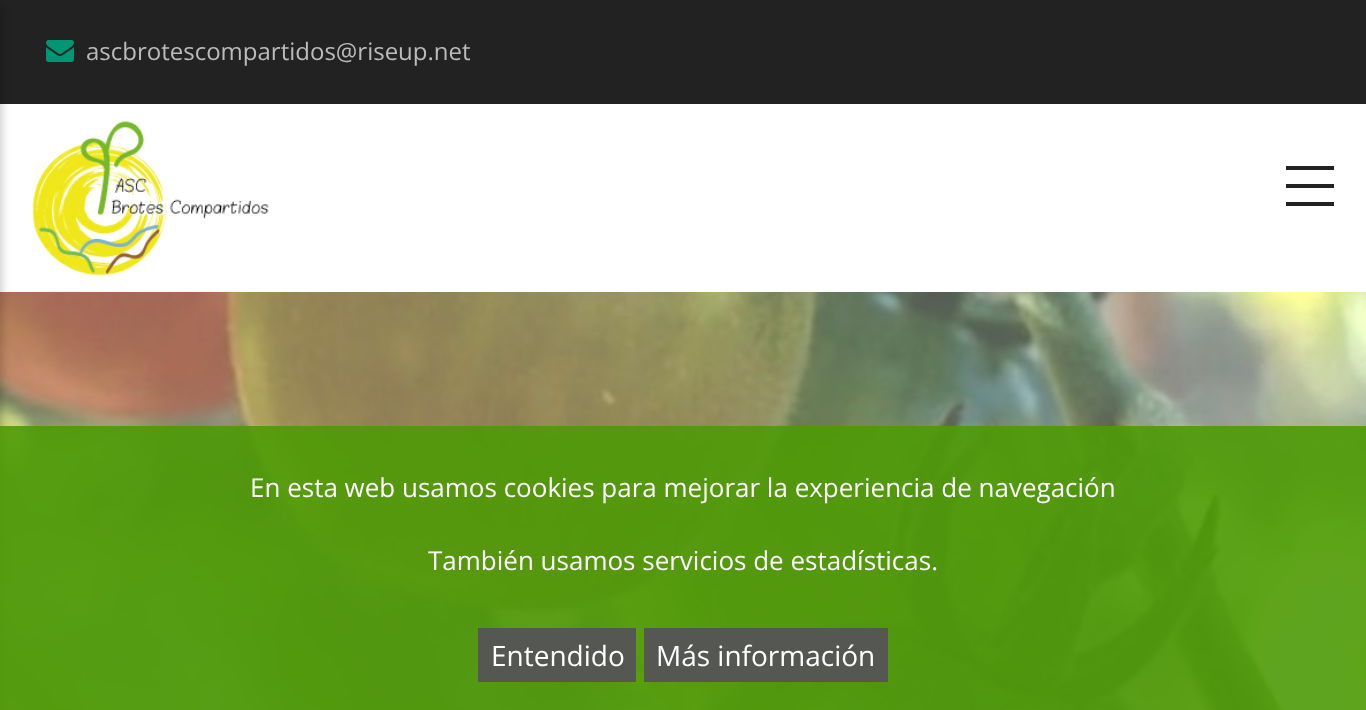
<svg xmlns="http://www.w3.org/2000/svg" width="1366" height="710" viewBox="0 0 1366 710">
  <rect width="100%" height="100%" fill="#fff"/>
  <path d="M0 0h1366v104H0z" fill="#222"/>
  <image x="0" y="292" width="1366" height="418" href="img/3.png"/>
  <path d="M-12 6h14v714H-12z" fill="#00000033" filter="blur(4px)"/>
  <path d="M1286 166h48v4H1286z" fill="#222"/>
  <path d="M1286 184h48v4H1286z" fill="#222"/>
  <path d="M1286 202h48v4H1286z" fill="#222"/>
  <image x="32" y="121" width="237" height="155" href="img/1.png"/>
  <image x="46" y="40" width="28" height="22" href="img/2.png"/>
  <path d="M0 426h1366v284H0z" fill="#4e9a06e6"/>
  <path d="M478 628h158v54H478z" fill="#555753"/>
  <path d="M644 628h244v54H644z" fill="#555753"/>
  <text x="86" y="60" font-family="Open Sans" font-size="24" fill="#bbb">ascbrotescompartidos@riseup.net</text>
  <g font-family="Open Sans" font-size="26" fill="#fff">
    <text x="250" y="497">En esta web usamos cookies para mejorar la experiencia de navegación</text>
    <text x="428" y="570">También usamos servicios de estadísticas.</text>
  </g>
  <g font-family="Open Sans" font-size="28" fill="#fff">
    <text x="491" y="666">Entendido</text>
    <text x="656" y="666">Más información</text>
  </g>
</svg>
